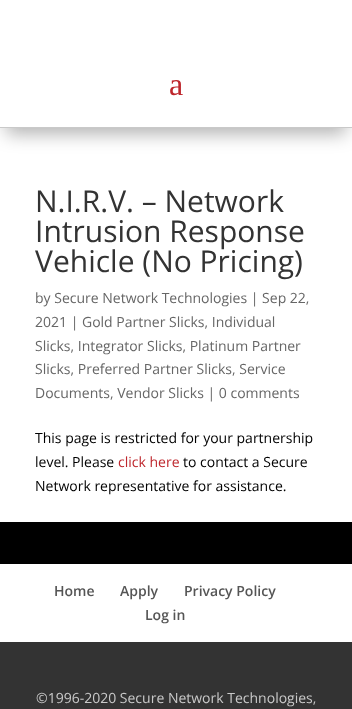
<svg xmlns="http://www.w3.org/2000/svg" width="352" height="709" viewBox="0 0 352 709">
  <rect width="100%" height="100%" fill="#000"/>
  <path d="M0 128h352v394H0z" fill="#fff"/>
  <path d="M6 0h340v134H6z" fill="#0000004d" filter="blur(9px)"/>
  <path d="M0 0h352v127H0z" fill="#fff"/>
  <path d="M0 127h352v1H0z" fill="#c9c9c9"/>
  <path d="M0 564h352v78H0z" fill="#fff"/>
  <path d="M0 642h352v67H0z" fill="#333"/>
  <text x="169" y="95" font-family="Liberation Serif" font-size="32" fill="#be272d">a</text>
  <g font-family="Open Sans" font-size="30" fill="#333">
    <text x="35" y="212">N.I.R.V. – Network</text>
    <text x="35" y="242">Intrusion Response</text>
    <text x="35" y="272">Vehicle (No Pricing)</text>
  </g>
  <g font-family="Open Sans" font-size="14" fill="#666">
    <text x="35" y="303">by Secure Network Technologies | Sep 22,</text>
    <text x="35" y="327">2021 | Gold Partner Slicks, Individual</text>
    <text x="35" y="351">Slicks, Integrator Slicks, Platinum Partner</text>
    <text x="35" y="374">Slicks, Preferred Partner Slicks, Service</text>
    <text x="35" y="398">Documents, Vendor Slicks | 0 comments</text>
  </g>
  <g font-family="Open Sans" font-size="14" fill="#000">
    <text x="35" y="443">This page is restricted for your partnership</text>
    <text x="35" y="467">level. Please</text>
  </g>
  <text x="118" y="467" font-family="Open Sans" font-size="14" fill="#be272d">click here</text>
  <g font-family="Open Sans" font-size="14" fill="#000">
    <text x="183" y="467">to contact a Secure</text>
    <text x="35" y="491">Network representative for assistance.</text>
  </g>
  <g font-family="Open Sans" font-size="14" font-weight="600" fill="#555">
    <text x="54" y="596">Home</text>
    <text x="120" y="596">Apply</text>
    <text x="184" y="596">Privacy Policy</text>
    <text x="145" y="620">Log in</text>
  </g>
  <text x="36" y="703" font-family="Open Sans" font-size="14" fill="#c9c9c9">©1996-2020 Secure Network Technologies,</text>
</svg>
